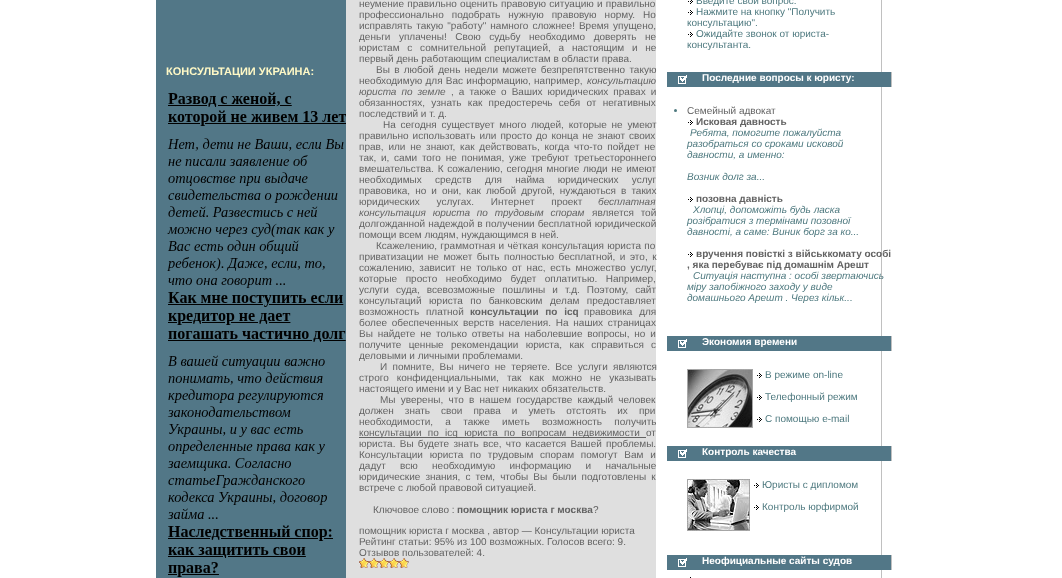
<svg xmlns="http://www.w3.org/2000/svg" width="1062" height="578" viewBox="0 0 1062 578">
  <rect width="100%" height="100%" fill="#fff"/>
  <image x="156" y="0" width="726" height="578" href="img/1.png"/>
  <path d="M341 0h5v578H341z" fill="#527787"/>
  <image x="167" y="92" width="179" height="485" href="img/2.png"/>
  <path d="M359 437h287v1H359z" fill="#636363"/>
  <image x="359" y="558" width="50" height="10" href="img/3.png"/>
  <image x="359" y="558" width="48" height="10" href="img/4.png"/>
  <image x="688" y="0" width="5" height="4" href="img/5.png"/>
  <image x="688" y="10" width="5" height="5" href="img/6.png"/>
  <image x="688" y="32" width="5" height="5" href="img/6.png"/>
  <image x="667" y="72" width="225" height="15" href="img/7.png"/>
  <circle cx="675.5" cy="110.5" r="1.5" fill="#4e797f"/>
  <image x="688" y="120" width="5" height="5" href="img/6.png"/>
  <image x="688" y="197" width="5" height="5" href="img/6.png"/>
  <image x="688" y="252" width="5" height="5" href="img/6.png"/>
  <image x="667" y="336" width="225" height="15" href="img/7.png"/>
  <image x="687" y="369" width="66" height="59" href="img/8.png"/>
  <image x="757" y="373" width="5" height="5" href="img/6.png"/>
  <image x="757" y="395" width="5" height="5" href="img/6.png"/>
  <image x="757" y="417" width="5" height="5" href="img/6.png"/>
  <image x="667" y="446" width="225" height="15" href="img/7.png"/>
  <image x="687" y="479" width="63" height="52" href="img/9.png"/>
  <image x="754" y="483" width="5" height="5" href="img/6.png"/>
  <image x="754" y="505" width="5" height="5" href="img/6.png"/>
  <image x="667" y="555" width="225" height="15" href="img/7.png"/>
  <path d="M690 577h1v1H690z" fill="#000"/>
  <text x="166" y="75" font-family="Liberation Sans" font-size="11" font-weight="bold" fill="#fff9c6">КОНСУЛЬТАЦИИ УКРАИНА:</text>
  <g font-family="Liberation Sans" font-size="10" fill="#636363">
    <text x="359" y="7" word-spacing="0.5">неумение правильно оценить правовую ситуацию и правильно</text>
    <text x="359" y="18" word-spacing="5.25">профессионально подобрать нужную правовую норму. Но</text>
    <text x="359" y="29" word-spacing="1.25">исправлять такую "работу" намного сложнее! Время упущено,</text>
    <text x="359" y="40" word-spacing="5.75">деньги уплачены! Свою судьбу необходимо доверять не</text>
    <text x="359" y="51" word-spacing="5">юристам с сомнительной репутацией, а настоящим и не</text>
    <text x="359" y="62">первый день работающим специалистам в области права.</text>
    <text x="376" y="73" word-spacing="1.5">Вы в любой день недели можете безпрепятственно такую</text>
    <text x="359" y="84" word-spacing="0.5">необходимую для Вас информацию, например,</text>
  </g>
  <g font-family="Liberation Sans" font-size="10" font-style="italic" fill="#636363">
    <text x="587" y="84">консультацию</text>
    <text x="359" y="95" word-spacing="2.25">юриста по земле</text>
  </g>
  <g font-family="Liberation Sans" font-size="10" fill="#636363">
    <text x="451" y="95" word-spacing="2.25">, а также о Ваших юридических правах и</text>
    <text x="359" y="106" word-spacing="3.5">обязанностях, узнать как предостеречь себя от негативных</text>
    <text x="359" y="117">последствий и т. д.</text>
    <text x="383" y="128" word-spacing="2">На сегодня существует много людей, которые не умеют</text>
    <text x="359" y="139" word-spacing="1.25">правильно использовать или просто до конца не знают своих</text>
    <text x="359" y="150" word-spacing="2">прав, или не знают, как действовать, когда что-то пойдет не</text>
    <text x="359" y="161" word-spacing="2">так, и, сами того не понимая, уже требуют третьестороннего</text>
    <text x="359" y="172" word-spacing="1">вмешательства. К сожалению, сегодня многие люди не имеют</text>
    <text x="359" y="183" word-spacing="10.5">необходимых средств для найма юридических услуг</text>
    <text x="359" y="194" word-spacing="2.25">правовика, но и они, как любой другой, нуждаються в таких</text>
    <text x="359" y="205" word-spacing="14">юридических услугах. Интернет проект</text>
  </g>
  <g font-family="Liberation Sans" font-size="10" font-style="italic" fill="#636363">
    <text x="598" y="205">бесплатная</text>
    <text x="359" y="216" word-spacing="4">консультация юриста по трудовым спорам</text>
  </g>
  <g font-family="Liberation Sans" font-size="10" fill="#636363">
    <text x="592" y="216" word-spacing="4">является той</text>
    <text x="359" y="227" word-spacing="0.25">долгожданной надеждой в получении бесплатной юридической</text>
    <text x="359" y="238">помощи всем людям, нуждающимся в ней.</text>
    <text x="376" y="249" word-spacing="0.5">Ксажелению, граммотная и чёткая консультация юриста по</text>
    <text x="359" y="260" word-spacing="1.75">приватизации не может быть полностью бесплатной, и это, к</text>
    <text x="359" y="271" word-spacing="2">сожалению, зависит не только от нас, есть множество услуг,</text>
    <text x="359" y="282" word-spacing="5.75">которые просто необходимо будет оплатитью. Например,</text>
    <text x="359" y="293" word-spacing="4.25">услуги суда, всевозможные пошлины и т.д. Поэтому, сайт</text>
    <text x="359" y="304" word-spacing="4.75">консультаций юриста по банковским делам предоставляет</text>
    <text x="359" y="315" word-spacing="4">возможность платной</text>
  </g>
  <text x="470" y="315" word-spacing="4" font-family="Liberation Sans" font-size="10" font-weight="bold" fill="#636363">консультации по icq</text>
  <g font-family="Liberation Sans" font-size="10" fill="#636363">
    <text x="584" y="315" word-spacing="4">правовика для</text>
    <text x="359" y="326" word-spacing="2">более обеспеченных верств населения. На наших страницах</text>
    <text x="359" y="337" word-spacing="2">Вы найдете не только ответы на наболевшие вопросы, но и</text>
    <text x="359" y="348" word-spacing="4.5">получите ценные рекомендации юриста, как справиться с</text>
    <text x="359" y="359">деловыми и личными проблемами.</text>
    <text x="380" y="370" word-spacing="2.5">И помните, Вы ничего не теряете. Все услуги являются</text>
    <text x="359" y="381" word-spacing="5.25">строго конфиденциальными, так как можно не указывать</text>
    <text x="359" y="392">настоящего имени и у Вас нет никаких обязательств.</text>
    <text x="380" y="403" word-spacing="2.5">Мы уверены, что в нашем государстве каждый человек</text>
    <text x="359" y="414" word-spacing="8.25">должен знать свои права и уметь отстоять их при</text>
    <text x="359" y="425" word-spacing="9.5">необходимости, а также иметь возможность получить</text>
    <text x="359" y="436" word-spacing="3.5">консультации по icq юриста по вопросам недвижимости</text>
    <text x="646" y="436">от</text>
    <text x="359" y="447" word-spacing="1.5">юриста. Вы будете знать все, что касается Вашей проблемы.</text>
    <text x="359" y="458" word-spacing="4">Консультации юриста по трудовым спорам помогут Вам и</text>
    <text x="359" y="469" word-spacing="11.5">дадут всю необходимую информацию и начальные</text>
    <text x="359" y="480" word-spacing="2.25">юридические знания, с тем, чтобы Вы были подготовлены к</text>
    <text x="359" y="491">встрече с любой правовой ситуацией.</text>
    <text x="373" y="513">Ключовое слово :</text>
  </g>
  <text x="457" y="513" font-family="Liberation Sans" font-size="10" font-weight="bold" fill="#636363">помощник юриста г москва</text>
  <g font-family="Liberation Sans" font-size="10" fill="#636363">
    <text x="593" y="513">?</text>
    <text x="359" y="534">помощник юриста г москва , автор — Консультации юриста</text>
    <text x="359" y="545">Рейтинг статьи: 95% из 100 возможных. Голосов всего: 9.</text>
    <text x="359" y="556">Отзывов пользователей: 4.</text>
  </g>
  <g font-family="Liberation Sans" font-size="10" fill="#4e797f">
    <text x="696" y="4">Введите свой вопрос.</text>
    <text x="696" y="15">Нажмите на кнопку "Получить</text>
    <text x="687" y="26">консультацию".</text>
    <text x="696" y="37">Ожидайте звонок от юриста-</text>
    <text x="687" y="48">консультанта.</text>
  </g>
  <text x="702" y="81" font-family="Liberation Sans" font-size="10" font-weight="bold" fill="#fff">Последние вопросы к юристу:</text>
  <text x="687" y="114" font-family="Liberation Sans" font-size="10" fill="#636363">Семейный адвокат</text>
  <text x="696" y="125" font-family="Liberation Sans" font-size="10" font-weight="bold" fill="#636363">Исковая давность</text>
  <g font-family="Liberation Sans" font-size="10" font-style="italic" fill="#4e797f">
    <text x="690" y="136">Ребята, помогите пожалуйста</text>
    <text x="687" y="147">разобраться со сроками исковой</text>
    <text x="687" y="158">давности, а именно:</text>
    <text x="687" y="180">Возник долг за...</text>
  </g>
  <text x="696" y="202" font-family="Liberation Sans" font-size="10" font-weight="bold" fill="#636363">позовна давність</text>
  <g font-family="Liberation Sans" font-size="10" font-style="italic" fill="#4e797f">
    <text x="693" y="213">Хлопці, допоможіть будь ласка</text>
    <text x="687" y="224">розібратися з термінами позовної</text>
    <text x="687" y="235">давності, а саме: Виник борг за ко...</text>
  </g>
  <g font-family="Liberation Sans" font-size="10" font-weight="bold" fill="#636363">
    <text x="696" y="257">вручення повісткі з військкомату особі</text>
    <text x="687" y="268">, яка перебуває під домашнім Арешт</text>
  </g>
  <g font-family="Liberation Sans" font-size="10" font-style="italic" fill="#4e797f">
    <text x="693" y="279">Ситуація наступна : особі звертаючись</text>
    <text x="687" y="290">міру запобіжного заходу у виде</text>
    <text x="687" y="301">домашнього Арешт . Через кільк...</text>
  </g>
  <text x="702" y="345" font-family="Liberation Sans" font-size="10" font-weight="bold" fill="#fff">Экономия времени</text>
  <g font-family="Liberation Sans" font-size="10" fill="#4e797f">
    <text x="765" y="378">В режиме on-line</text>
    <text x="765" y="400">Телефонный режим</text>
    <text x="765" y="422">С помощью e-mail</text>
  </g>
  <text x="702" y="455" font-family="Liberation Sans" font-size="10" font-weight="bold" fill="#fff">Контроль качества</text>
  <g font-family="Liberation Sans" font-size="10" fill="#4e797f">
    <text x="762" y="488">Юристы с дипломом</text>
    <text x="762" y="510">Контроль юрфирмой</text>
  </g>
  <text x="702" y="564" font-family="Liberation Sans" font-size="10" font-weight="bold" fill="#fff">Неофициальные сайты судов</text>
</svg>
